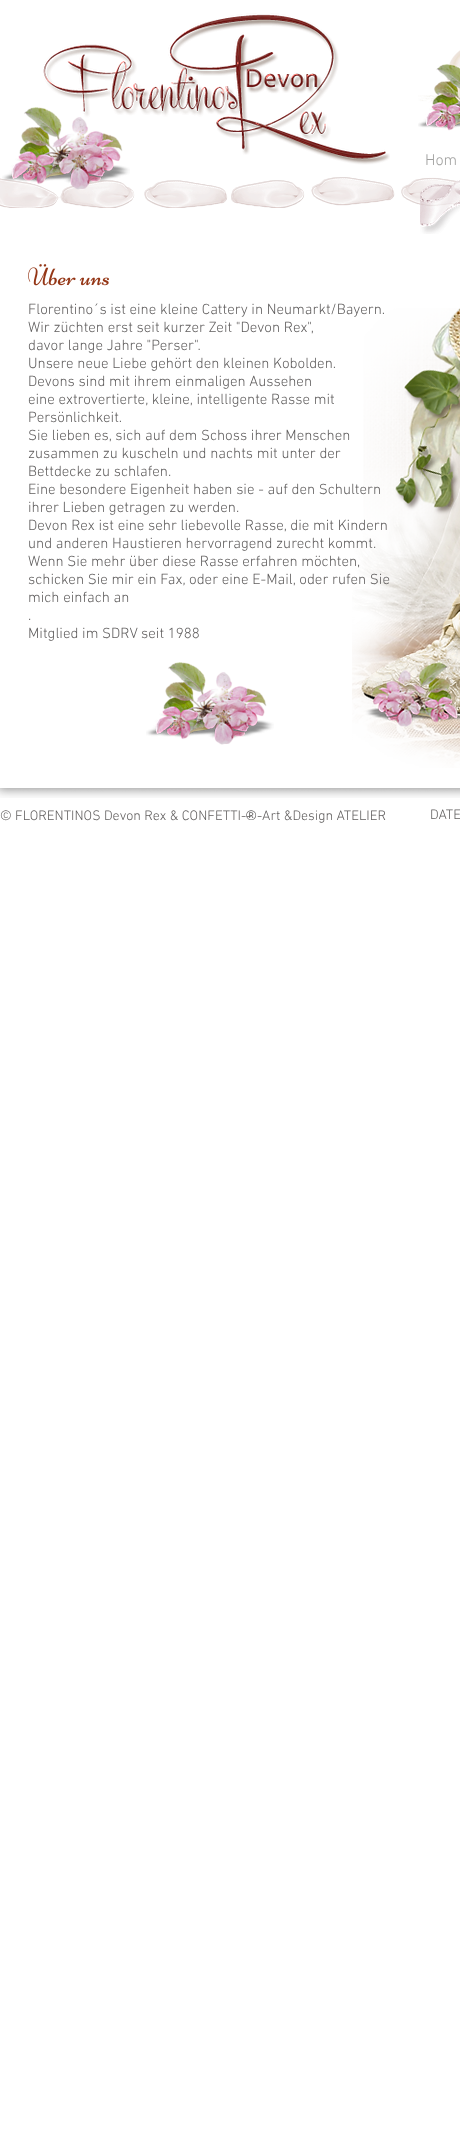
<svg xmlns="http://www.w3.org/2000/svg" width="460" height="2142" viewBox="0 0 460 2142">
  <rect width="100%" height="100%" fill="#fff"/>
  <image x="43" y="13" width="347" height="152" href="img/1.png"/>
  <image x="418" y="50" width="42" height="81" href="img/2.png"/>
  <image x="0" y="177" width="460" height="31" href="img/4.png"/>
  <image x="2" y="107" width="128" height="83" href="img/3.png"/>
  <image x="420" y="180" width="40" height="54" href="img/5.png"/>
  <image x="28" y="264" width="81" height="22" href="img/6.png"/>
  <image x="352" y="308" width="108" height="460" href="img/7.png"/>
  <image x="146" y="662" width="128" height="83" href="img/8.png"/>
  <image x="0" y="788" width="35" height="10" href="img/9.png"/>
  <image x="35" y="788" width="425" height="10" href="img/10.png"/>
  <text x="425" y="165" font-family="'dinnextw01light'" font-size="16" font-weight="300" fill="#a0a09f">Hom</text>
  <g font-family="'dinnextw01light'" font-size="15" font-weight="300" fill="#605e5e">
    <text x="28" y="314">Florentino´s ist eine kleine Cattery in Neumarkt/Bayern.</text>
    <text x="28" y="332">Wir züchten erst seit kurzer Zeit "Devon Rex",</text>
    <text x="28" y="350">davor lange Jahre "Perser".</text>
    <text x="28" y="368">Unsere neue Liebe gehört den kleinen Kobolden.</text>
    <text x="28" y="386">Devons sind mit ihrem einmaligen Aussehen</text>
    <text x="28" y="404">eine extrovertierte, kleine, intelligente Rasse mit</text>
    <text x="28" y="422">Persönlichkeit.</text>
    <text x="28" y="440">Sie lieben es, sich auf dem Schoss ihrer Menschen</text>
    <text x="28" y="458">zusammen zu kuscheln und nachts mit unter der</text>
    <text x="28" y="476">Bettdecke zu schlafen.</text>
    <text x="28" y="494">Eine besondere Eigenheit haben sie - auf den Schultern</text>
    <text x="28" y="512">ihrer Lieben getragen zu werden.</text>
    <text x="28" y="530">Devon Rex ist eine sehr liebevolle Rasse, die mit Kindern</text>
    <text x="28" y="548">und anderen Haustieren hervorragend zurecht kommt.</text>
    <text x="28" y="566">Wenn Sie mehr über diese Rasse erfahren möchten,</text>
    <text x="28" y="584">schicken Sie mir ein Fax, oder eine E-Mail, oder rufen Sie</text>
    <text x="28" y="602">mich einfach an</text>
    <text x="28" y="620">.</text>
    <text x="28" y="638">Mitglied im SDRV seit 1988</text>
  </g>
  <text x="0" y="820" font-family="'dinnextw01light'" font-size="14" font-weight="300" fill="#605e5e">© FLORENTINOS Devon Rex &amp; CONFETTI--</text>
  <text x="246" y="820" font-family="Liberation Sans" font-size="14" fill="#605e5e">®</text>
  <g font-family="'dinnextw01light'" font-size="14" font-weight="300" fill="#605e5e">
    <text x="257" y="820">-Art &amp;Design ATELIER</text>
    <text x="430" y="819">DATE</text>
  </g>
</svg>
